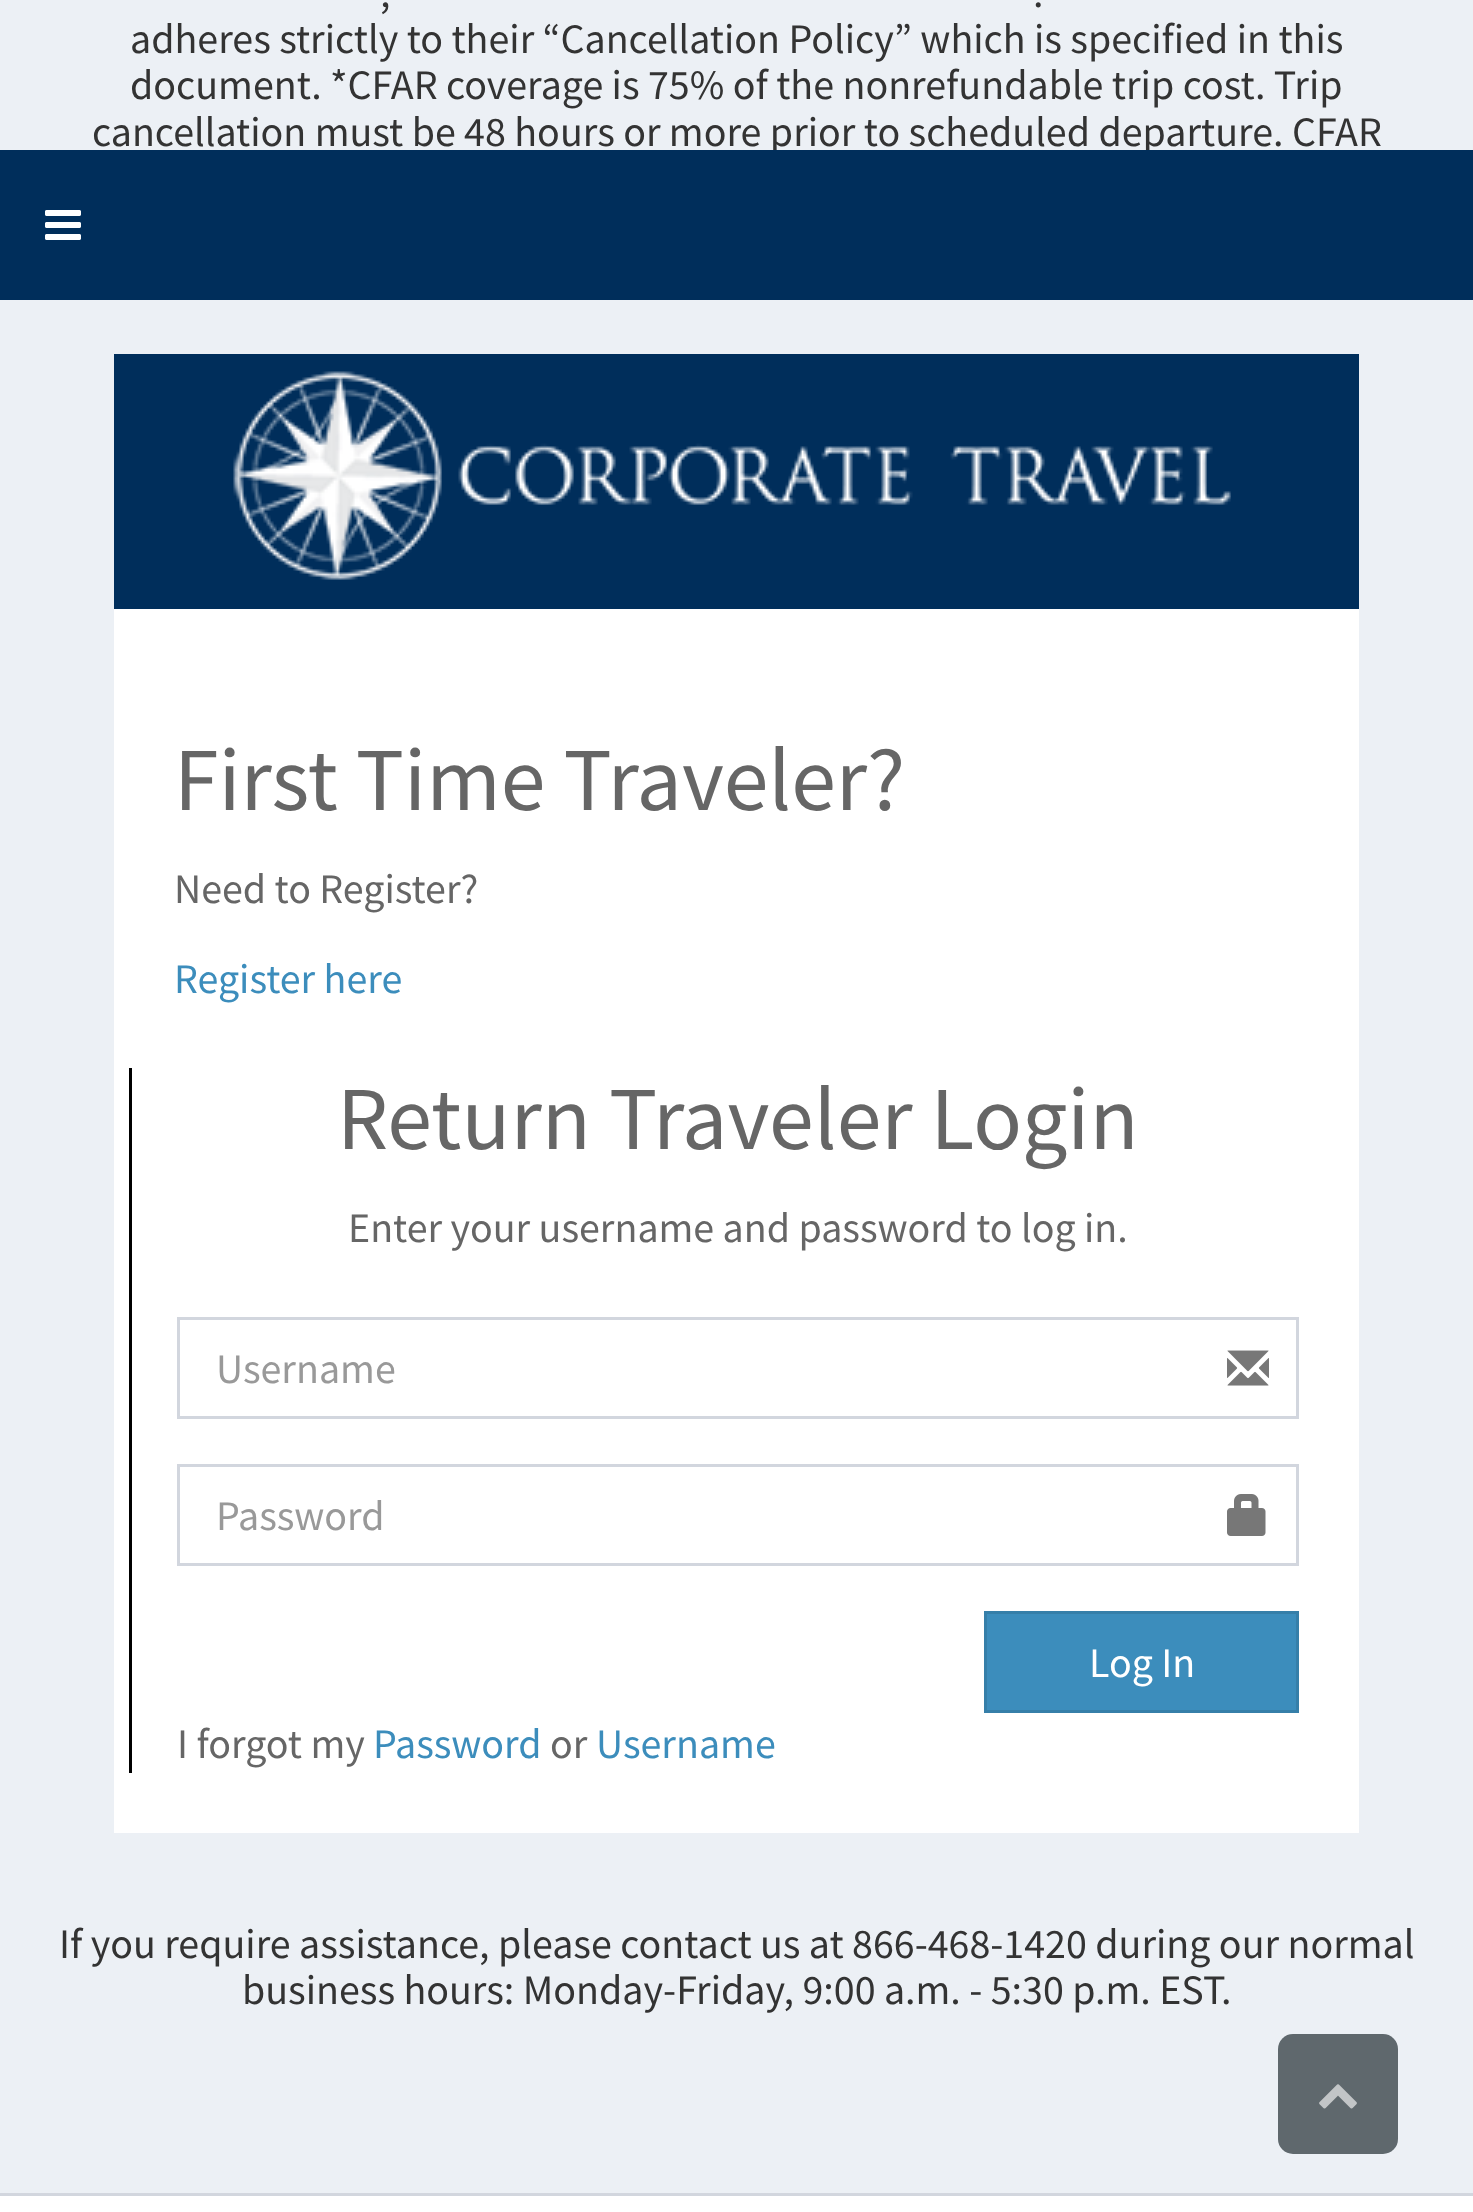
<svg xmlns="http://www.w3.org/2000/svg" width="1473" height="2212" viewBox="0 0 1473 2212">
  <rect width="100%" height="100%" fill="#ecf0f5"/>
  <path d="M114 354h1245v255H114z" fill="#002e5b"/>
  <image x="233" y="371" width="998" height="209" href="img/1.png"/>
  <path d="M114 609h1245v1224H114z" fill="#fff"/>
  <path d="M129 1068h3v705H129z" fill="#000"/>
  <path d="M178.5 1318.5h1119v99H178.5z" fill="none" stroke="#d2d6de" stroke-width="3"/>
  <image x="1227" y="1350" width="42" height="36" href="img/2.png"/>
  <path d="M178.5 1465.5h1119v99H178.5z" fill="none" stroke="#d2d6de" stroke-width="3"/>
  <image x="1227" y="1494" width="39" height="42" href="img/3.png"/>
  <path d="M985.5 1612.5h312v99H985.5z" fill="#3c8dbc" stroke="#367fa9" stroke-width="3"/>
  <rect x="1278" y="2034" width="120" height="120" rx="15" fill="#5f686d"/>
  <image x="1319" y="2084" width="38" height="25" href="img/5.png"/>
  <path d="M0 2196h1473v16H0z" fill="#fff"/>
  <path d="M0 2193h1473v3H0z" fill="#d2d6de"/>
  <g font-family="Source Sans Pro" font-size="42" fill="#333">
    <text x="380" y="7">,</text>
    <text x="1033" y="7">.</text>
    <text x="130" y="53">adheres strictly to their “Cancellation Policy” which is specified in this</text>
    <text x="130" y="99">document. *CFAR coverage is 75% of the nonrefundable trip cost. Trip</text>
    <text x="92" y="146">cancellation must be 48 hours or more prior to scheduled departure. CFAR</text>
  </g>
  <text x="174" y="810" font-family="Source Sans Pro" font-size="90" fill="#666">First Time Traveler?</text>
  <text x="174" y="903" font-family="Source Sans Pro" font-size="42" fill="#666">Need to Register?</text>
  <text x="174" y="993" font-family="Source Sans Pro" font-size="42" fill="#3c8dbc">Register here</text>
  <text x="337" y="1149" font-family="Source Sans Pro" font-size="90" fill="#666">Return Traveler Login</text>
  <text x="348" y="1242" font-family="Source Sans Pro" font-size="42" fill="#666">Enter your username and password to log in.</text>
  <g font-family="Source Sans Pro" font-size="42" fill="#999">
    <text x="216" y="1383">Username</text>
    <text x="216" y="1530">Password</text>
  </g>
  <text x="1089" y="1677" font-family="Source Sans Pro" font-size="42" fill="#fff">Log In</text>
  <text x="177" y="1758" font-family="Source Sans Pro" font-size="42" fill="#666">I forgot my</text>
  <text x="373" y="1758" font-family="Source Sans Pro" font-size="42" fill="#3c8dbc">Password</text>
  <text x="550" y="1758" font-family="Source Sans Pro" font-size="42" fill="#666">or</text>
  <text x="596" y="1758" font-family="Source Sans Pro" font-size="42" fill="#3c8dbc">Username</text>
  <g font-family="Source Sans Pro" font-size="42" fill="#333">
    <text x="59" y="1958">If you require assistance, please contact us at 866-468-1420 during our normal</text>
    <text x="242" y="2004">business hours: Monday-Friday, 9:00 a.m. - 5:30 p.m. EST.</text>
  </g>
  <path d="M0 150h1473v150H0z" fill="#002e5b"/>
  <image x="45" y="210" width="36" height="30" href="img/4.png"/>
</svg>
